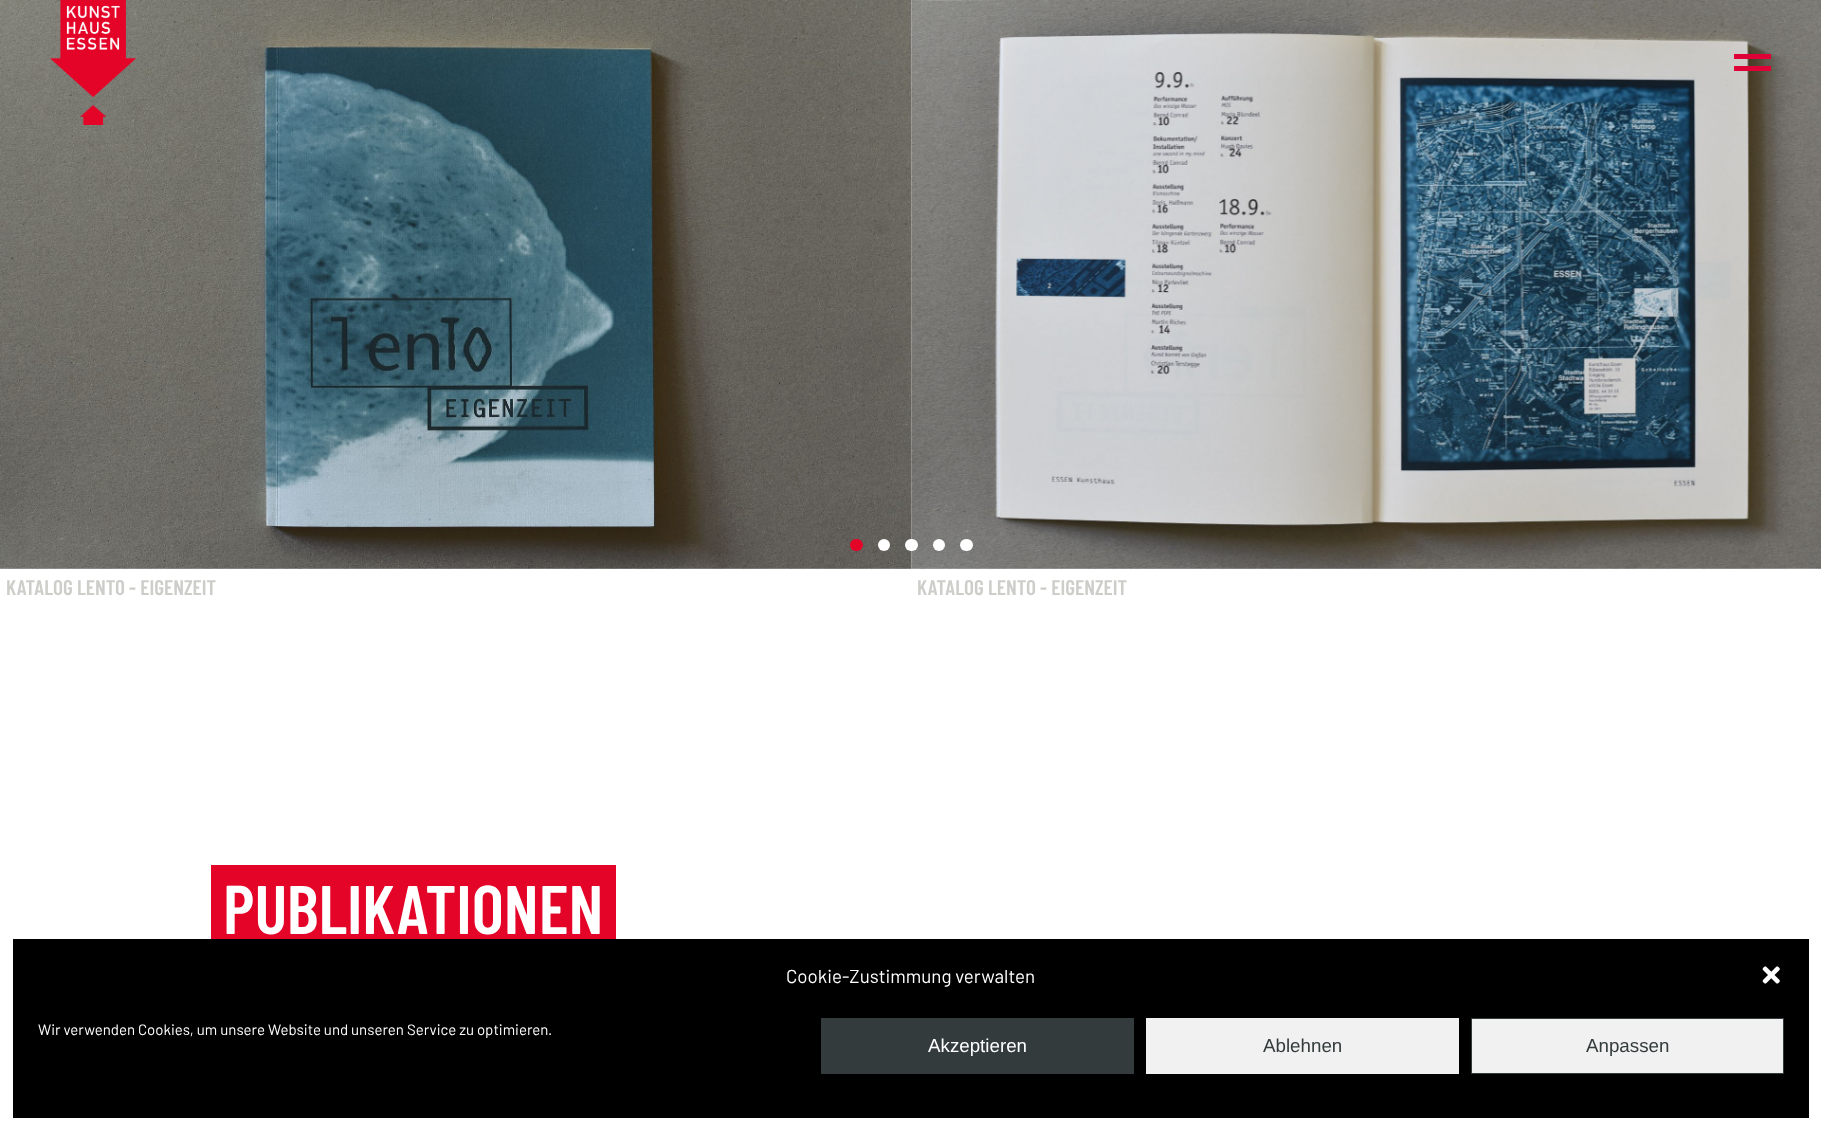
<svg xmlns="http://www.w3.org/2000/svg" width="1821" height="1129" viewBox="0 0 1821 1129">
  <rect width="100%" height="100%" fill="#fff"/>
  <image x="0" y="0" width="912" height="569" href="img/2.png"/>
  <image x="50" y="0" width="87" height="125" href="img/1.png"/>
  <image x="911" y="0" width="910" height="569" href="img/3.png"/>
  <path d="M1734 54h37v5H1734z" fill="#df0035"/>
  <path d="M1734 66h37v5H1734z" fill="#df0035"/>
  <rect x="850" y="539" width="13" height="12" rx="6" fill="#e40428"/>
  <circle cx="884" cy="545" r="6" fill="#fff"/>
  <rect x="905" y="539" width="13" height="12" rx="6" fill="#fff"/>
  <circle cx="939" cy="545" r="6" fill="#fff"/>
  <rect x="960" y="539" width="13" height="12" rx="6" fill="#fff"/>
  <path d="M211 865h405v74H211z" fill="#e40428"/>
  <path d="M13 939h1796v179H13z" fill="#000"/>
  <image x="1762" y="966" width="18" height="18" href="img/4.png"/>
  <path d="M821 1018h313v56H821z" fill="#333b3d"/>
  <path d="M1146 1018h313v56H1146z" fill="#f1f1f1"/>
  <path d="M1471.5 1018.5h312v55H1471.5z" fill="#f1f1f1" stroke="#333b3d"/>
  <g font-family="Barlow Condensed" font-size="21.25" font-weight="600" fill="#cdceca">
    <text x="6" y="595">KATALOG LENTO - EIGENZEIT</text>
    <text x="917" y="595">KATALOG LENTO - EIGENZEIT</text>
  </g>
  <text x="223" y="934" font-family="Barlow Condensed" font-size="68.75" font-weight="600" fill="#fff">PUBLIKATIONEN</text>
  <text x="786" y="983" font-family="Barlow" font-size="18.75" fill="#fff">Cookie-Zustimmung verwalten</text>
  <text x="38" y="1035" font-family="Barlow" font-size="15" fill="#fff">Wir verwenden Cookies, um unsere Website und unseren Service zu optimieren.</text>
  <text x="928" y="1052" font-family="Liberation Sans" font-size="18.75" fill="#fff">Akzeptieren</text>
  <g font-family="Liberation Sans" font-size="18.75" fill="#333b3d">
    <text x="1263" y="1052">Ablehnen</text>
    <text x="1586" y="1052">Anpassen</text>
  </g>
</svg>
